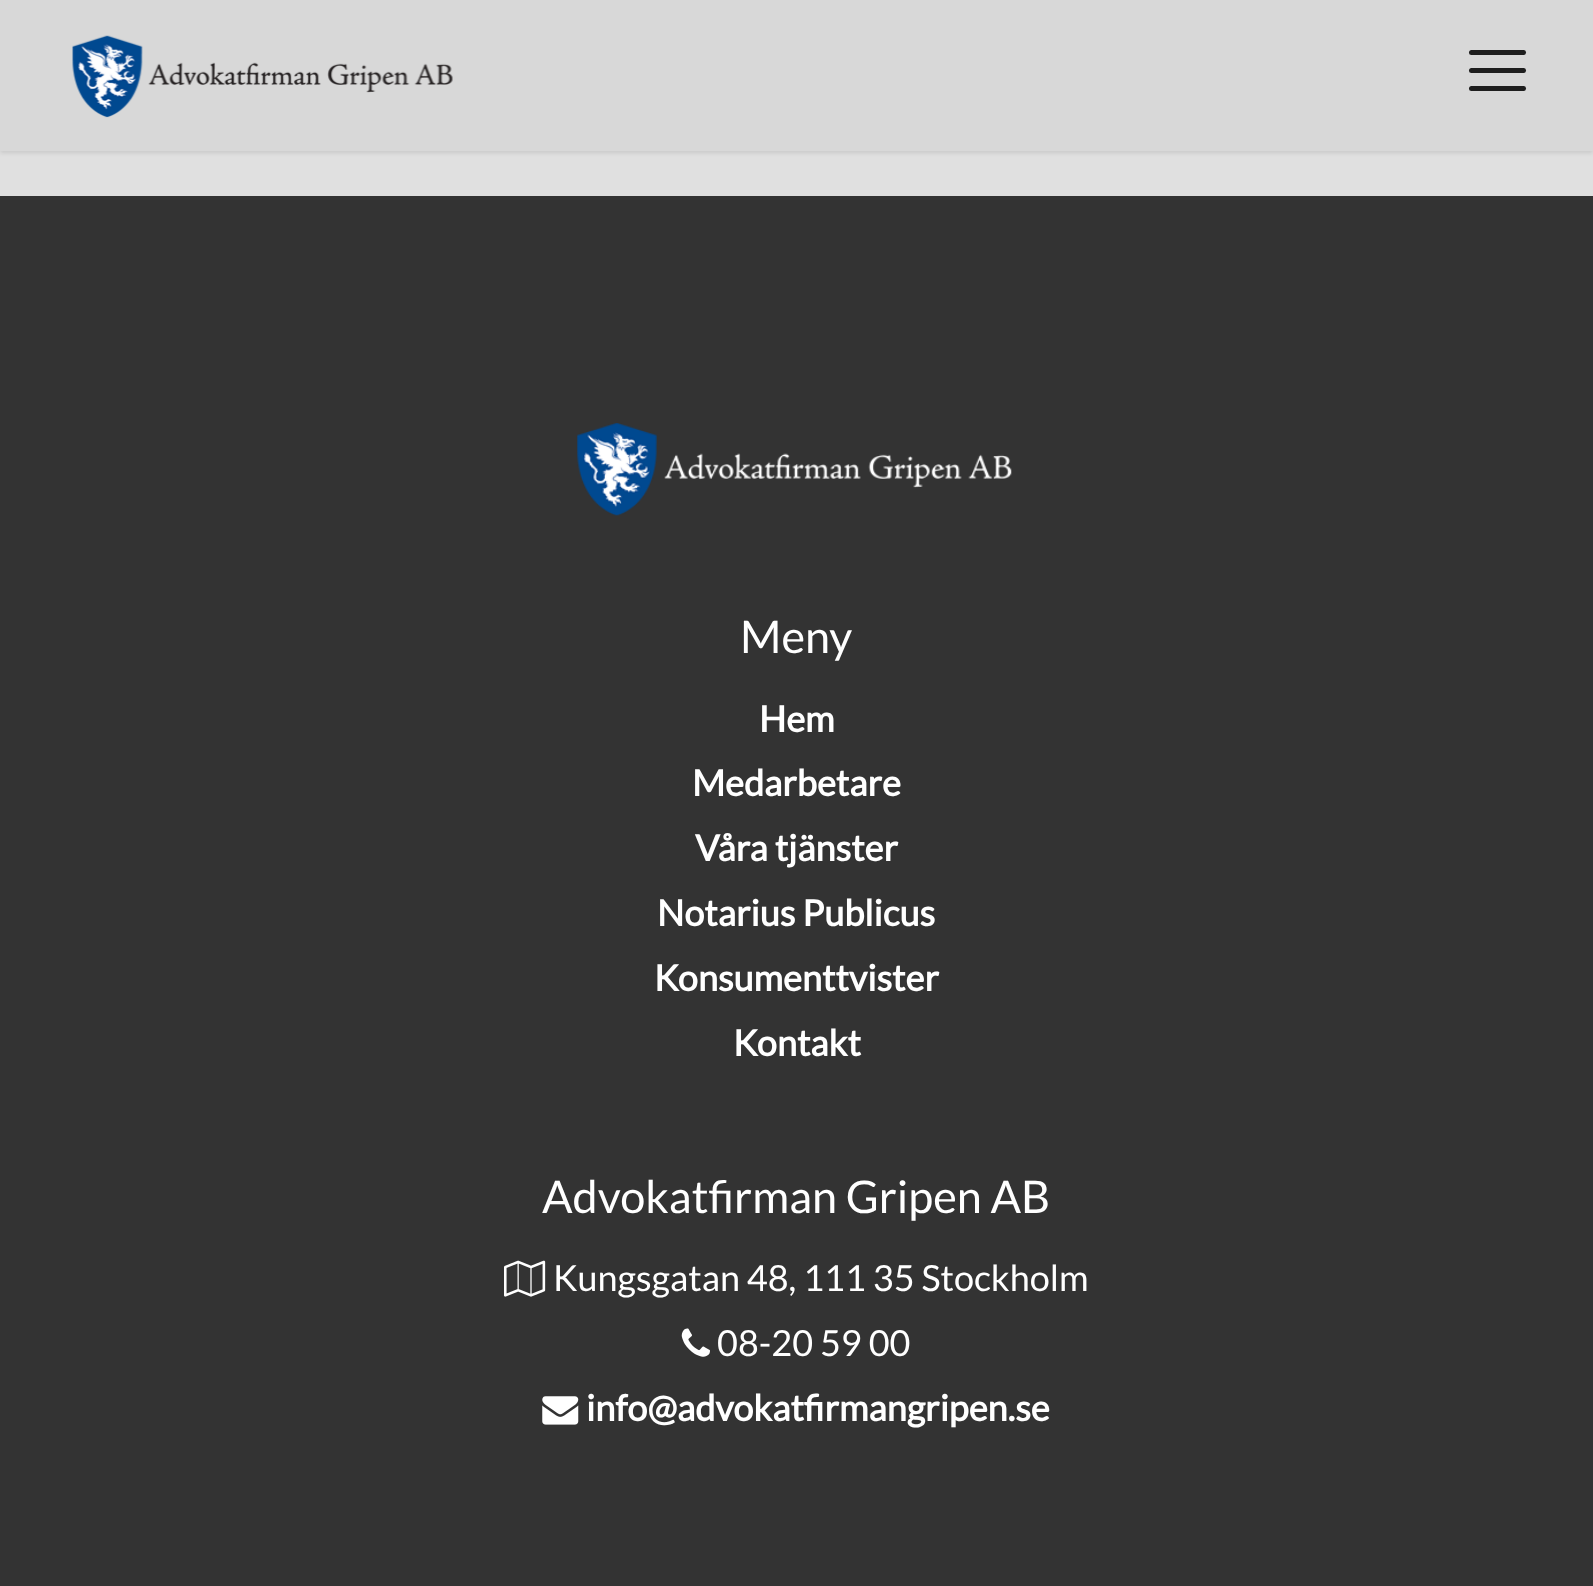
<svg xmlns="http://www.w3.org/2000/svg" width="1593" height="1586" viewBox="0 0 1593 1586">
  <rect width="100%" height="100%" fill="#e0e0e0"/>
  <path d="M0 2h1593v151H0z" fill="#0000001a" filter="blur(2px)"/>
  <path d="M0 0h1593v151H0z" fill="#d8d8d8"/>
  <image x="72" y="35" width="381" height="83" href="img/1.png"/>
  <rect x="1469" y="50" width="57" height="5" rx="2.5" fill="#1e1e1e"/>
  <rect x="1469" y="68" width="57" height="5" rx="2.5" fill="#1e1e1e"/>
  <rect x="1469" y="86" width="57" height="5" rx="2.5" fill="#1e1e1e"/>
  <path d="M0 196h1593v1390H0z" fill="#333"/>
  <image x="577" y="423" width="435" height="93" href="img/2.png"/>
  <image x="504" y="1260" width="42" height="37" href="img/3.png"/>
  <image x="681" y="1328" width="29" height="29" href="img/4.png"/>
  <image x="542" y="1396" width="37" height="29" href="img/5.png"/>
  <text x="740" y="653" font-family="Lato" font-size="45" fill="#fff">Meny</text>
  <g font-family="Lato" font-size="36" font-weight="bold" fill="#fff">
    <text x="759" y="732">Hem</text>
    <text x="692" y="796">Medarbetare</text>
    <text x="695" y="861">Våra tjänster</text>
    <text x="657" y="926">Notarius Publicus</text>
    <text x="654" y="991">Konsumenttvister</text>
    <text x="733" y="1056">Kontakt</text>
  </g>
  <text x="542" y="1213" font-family="Lato" font-size="45" fill="#fff">Advokatfirman Gripen AB</text>
  <g font-family="Lato" font-size="36" fill="#fff">
    <text x="553" y="1291">Kungsgatan 48, 111 35 Stockholm</text>
    <text x="717" y="1356">08-20 59 00</text>
  </g>
  <text x="586" y="1421" font-family="Lato" font-size="36" font-weight="bold" fill="#fff">info@advokatfirmangripen.se</text>
</svg>
